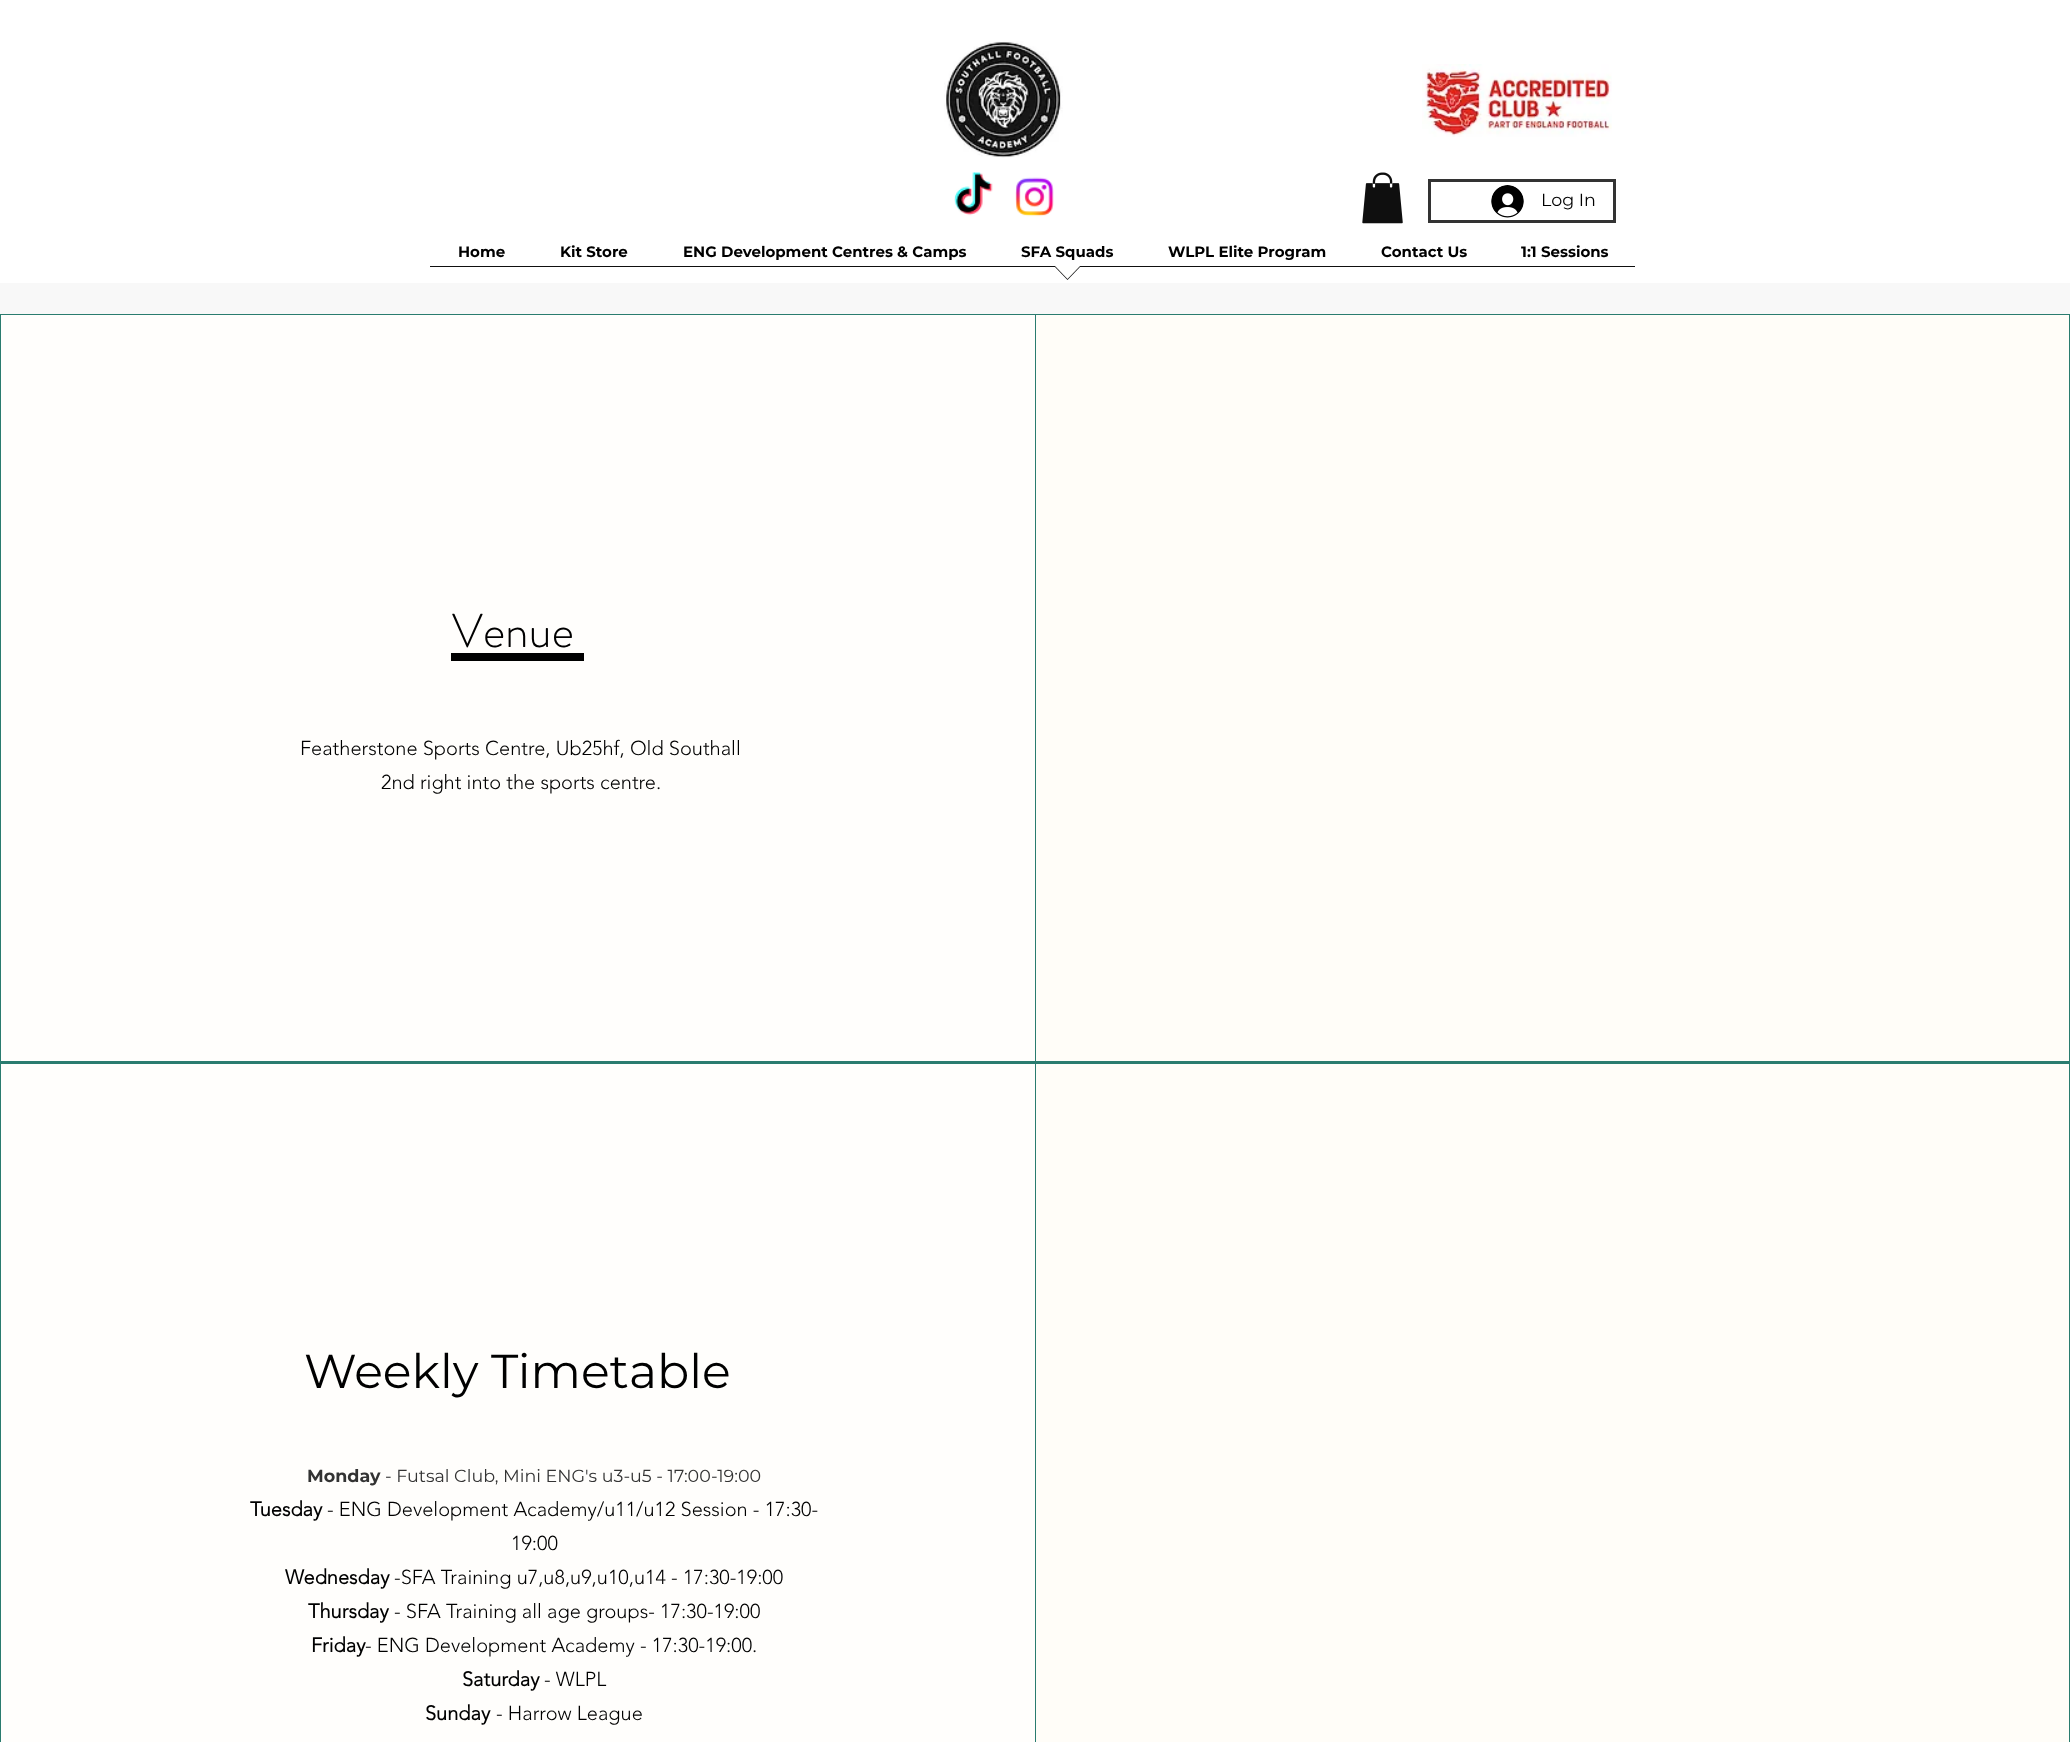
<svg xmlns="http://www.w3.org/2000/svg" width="2070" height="1742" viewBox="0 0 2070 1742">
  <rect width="100%" height="100%" fill="#fff"/>
  <image x="944" y="41" width="119" height="117" href="img/1.png"/>
  <image x="1422" y="64" width="190" height="73" href="img/2.png"/>
  <image x="954" y="172" width="39" height="44" href="img/3.png"/>
  <image x="1015" y="177" width="39" height="40" href="img/4.png"/>
  <image x="1362" y="172" width="41" height="52" href="img/5.png"/>
  <path d="M1429.5 180.5h185v41H1429.5z" fill="none" stroke="#333" stroke-width="3"/>
  <image x="1491" y="185" width="33" height="33" href="img/6.png"/>
  <path d="M430 266h1205v1H430z" fill="#0f0f0f"/>
  <path d="M1054 266H1081L1067.5 280Z" fill="#0f0f0f"/>
  <path d="M1055 266H1080L1067.5 279Z" fill="#fffffe"/>
  <path d="M0 283h2070v31H0z" fill="#f8f8f8"/>
  <path d="M0 314h2070v1428H0z" fill="#2a7c6f"/>
  <path d="M1 315h1034v746H1z" fill="#fffefc"/>
  <path d="M451 653h133v8H451z" fill="#000"/>
  <path d="M1036 315h1033v746H1036z" fill="#fffdf8"/>
  <path d="M1 1064h1034v678H1z" fill="#fffefc"/>
  <path d="M1036 1064h1033v678H1036z" fill="#fffdf8"/>
  <text x="1541" y="206" font-family="Montserrat" font-size="17.5" fill="#000">Log In</text>
  <g font-family="Montserrat" font-size="15" font-weight="bold" fill="#000">
    <text x="458" y="257">Home</text>
    <text x="560" y="257">Kit Store</text>
    <text x="683" y="257">ENG Development Centres &amp; Camps</text>
    <text x="1021" y="257">SFA Squads</text>
    <text x="1168" y="257">WLPL Elite Program</text>
    <text x="1381" y="257">Contact Us</text>
    <text x="1521" y="257">1:1 Sessions</text>
  </g>
  <text x="452" y="647" font-family="'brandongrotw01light'" font-size="47.5" font-weight="300" fill="#000">Venue</text>
  <g font-family="'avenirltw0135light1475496'" font-size="20" font-weight="300" fill="#000">
    <text x="300" y="755">Featherstone Sports Centre, Ub25hf, Old Southall</text>
    <text x="381" y="789">2nd right into the sports centre.</text>
  </g>
  <text x="304" y="1388" font-family="Montserrat" font-size="47.5" fill="#000">Weekly Timetable</text>
  <text x="307" y="1482" font-family="Montserrat" font-size="17.5" font-weight="bold" fill="#333">Monday</text>
  <text x="385" y="1482" font-family="Montserrat" font-size="17.5" fill="#333">- Futsal Club, Mini ENG's u3-u5 - 17:00-19:00</text>
  <text x="250" y="1516" font-family="'avenirltw0135light1475496'" font-size="20" font-weight="bold" fill="#000">Tuesday</text>
  <g font-family="'avenirltw0135light1475496'" font-size="20" font-weight="300" fill="#000">
    <text x="327" y="1516">- ENG Development Academy/u11/u12 Session - 17:30-</text>
    <text x="511" y="1550">19:00</text>
  </g>
  <text x="285" y="1584" font-family="'avenirltw0135light1475496'" font-size="20" font-weight="bold" fill="#000">Wednesday</text>
  <text x="394" y="1584" font-family="'avenirltw0135light1475496'" font-size="20" font-weight="300" fill="#000">-SFA Training u7,u8,u9,u10,u14 - 17:30-19:00</text>
  <text x="308" y="1618" font-family="'avenirltw0135light1475496'" font-size="20" font-weight="bold" fill="#000">Thursday</text>
  <text x="394" y="1618" font-family="'avenirltw0135light1475496'" font-size="20" font-weight="300" fill="#000">- SFA Training all age groups- 17:30-19:00</text>
  <text x="311" y="1652" font-family="'avenirltw0135light1475496'" font-size="20" font-weight="bold" fill="#000">Friday</text>
  <text x="365" y="1652" font-family="'avenirltw0135light1475496'" font-size="20" font-weight="300" fill="#000">- ENG Development Academy - 17:30-19:00.</text>
  <text x="462" y="1686" font-family="'avenirltw0135light1475496'" font-size="20" font-weight="bold" fill="#000">Saturday</text>
  <text x="544" y="1686" font-family="'avenirltw0135light1475496'" font-size="20" font-weight="300" fill="#000">- WLPL</text>
  <text x="425" y="1720" font-family="'avenirltw0135light1475496'" font-size="20" font-weight="bold" fill="#000">Sunday</text>
  <text x="496" y="1720" font-family="'avenirltw0135light1475496'" font-size="20" font-weight="300" fill="#000">- Harrow League</text>
</svg>
